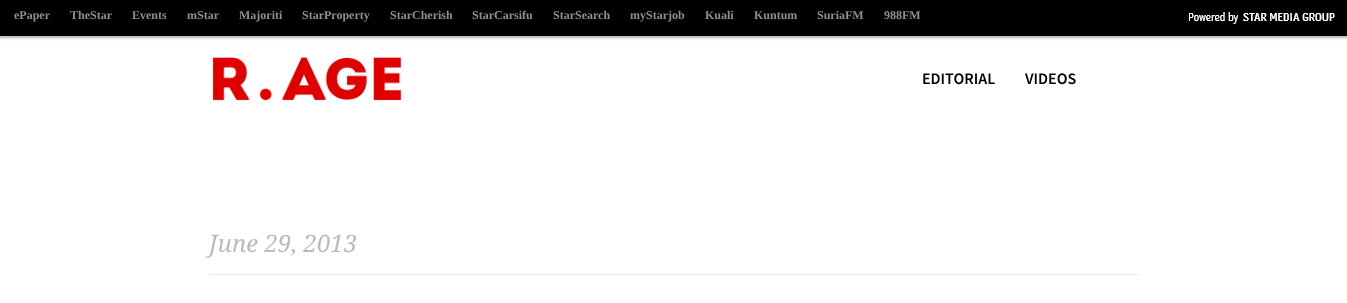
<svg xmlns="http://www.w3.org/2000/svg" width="1347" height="303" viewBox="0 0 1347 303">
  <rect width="100%" height="100%" fill="#fff"/>
  <path d="M-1 0h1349v38H-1z" fill="#0000004d" filter="blur(1.5px)"/>
  <path d="M0 0h1347v36H0z" fill="#000"/>
  <image x="1189" y="12" width="146" height="12" href="img/1.png"/>
  <image x="212" y="57" width="190" height="44" href="img/2.png"/>
  <path d="M209 274h930v1H209z" fill="#eaeaea"/>
  <g font-family="Liberation Serif" font-size="12" font-weight="bold" fill="#8f8f8f">
    <text x="14" y="19">ePaper</text>
    <text x="70" y="19">TheStar</text>
    <text x="132" y="19">Events</text>
    <text x="187" y="19">mStar</text>
    <text x="239" y="19">Majoriti</text>
    <text x="302" y="19">StarProperty</text>
    <text x="390" y="19">StarCherish</text>
    <text x="472" y="19">StarCarsifu</text>
    <text x="553" y="19">StarSearch</text>
    <text x="630" y="19">myStarjob</text>
    <text x="705" y="19">Kuali</text>
    <text x="754" y="19">Kuntum</text>
    <text x="817" y="19">SuriaFM</text>
    <text x="884" y="19">988FM</text>
  </g>
  <g font-family="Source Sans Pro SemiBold" font-size="16" font-weight="600" fill="#000">
    <text x="922" y="84">EDITORIAL</text>
    <text x="1025" y="84">VIDEOS</text>
  </g>
  <text x="209" y="252" font-family="Noto Serif" font-size="24" font-style="italic" fill="#bbb">June 29, 2013</text>
</svg>
